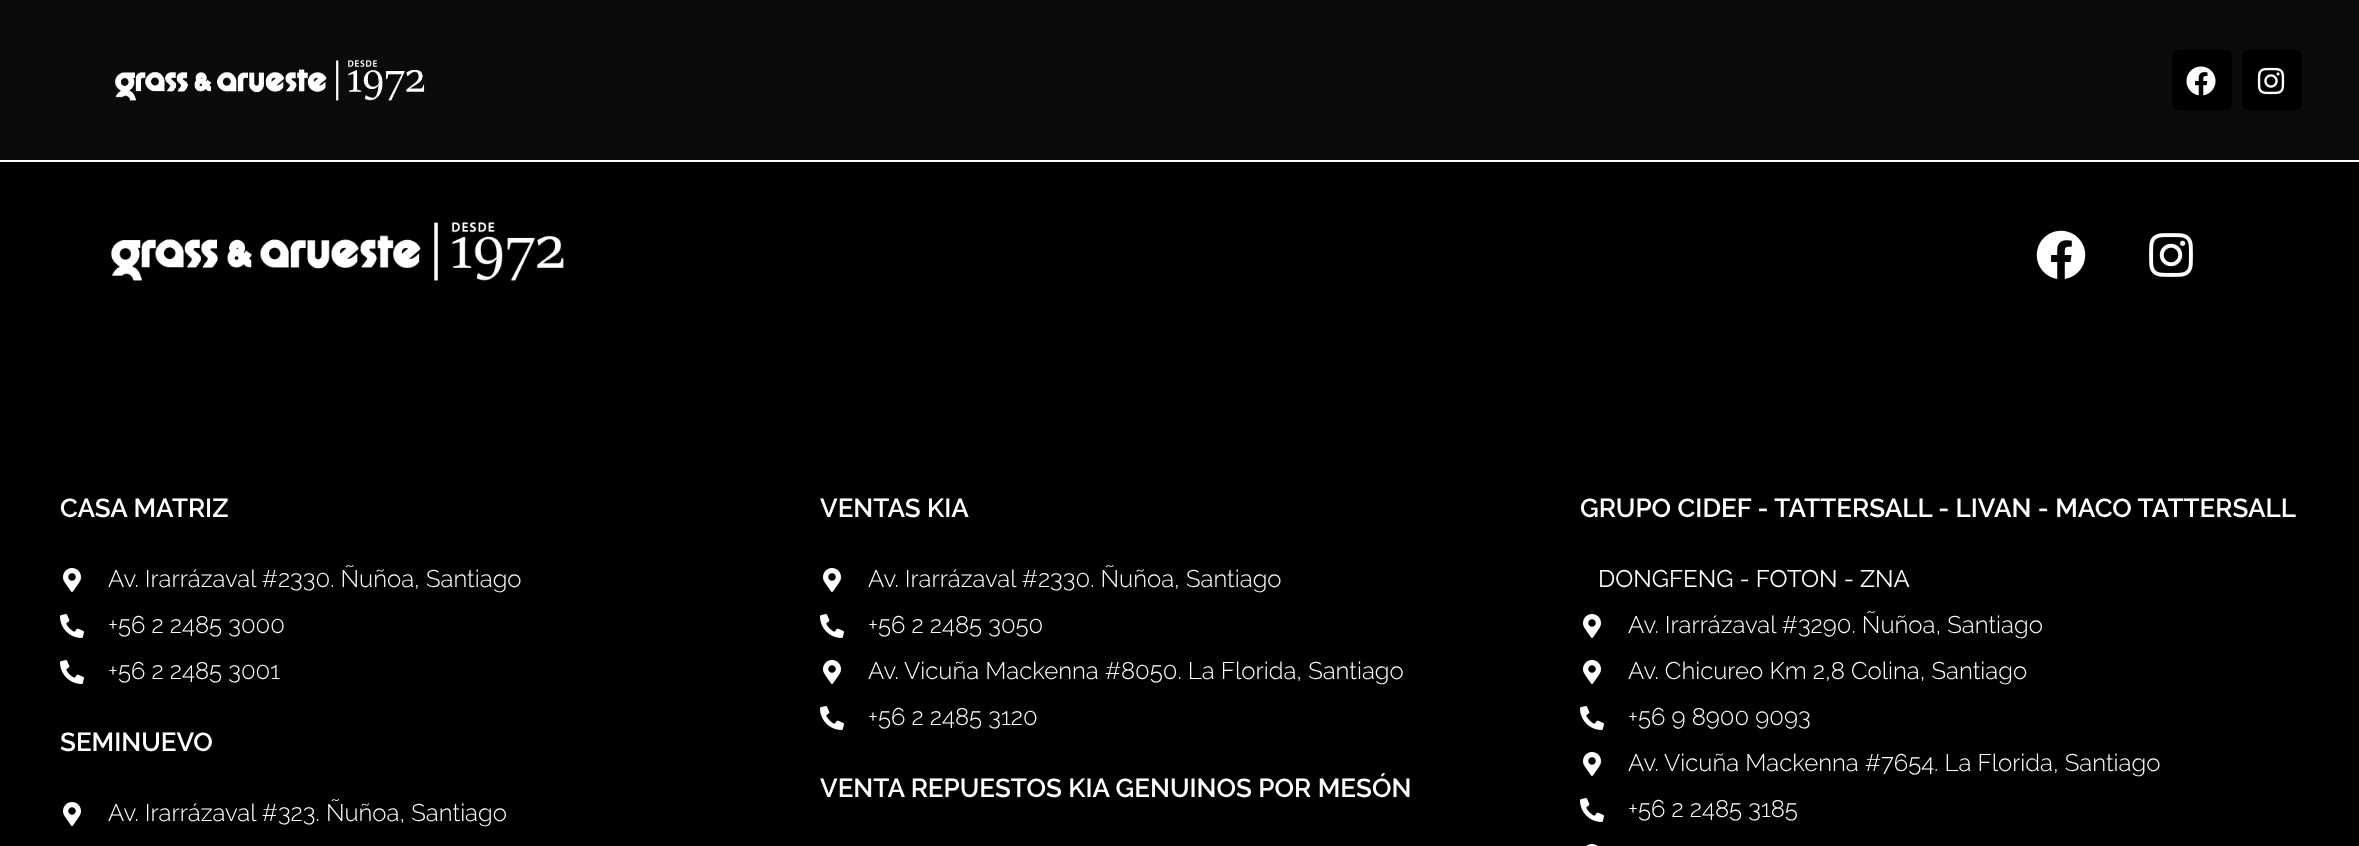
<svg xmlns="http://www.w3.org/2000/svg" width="2359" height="846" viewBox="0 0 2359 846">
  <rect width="100%" height="100%" fill="#000"/>
  <path d="M0 0h2359v160H0z" fill="#0b0b0b"/>
  <path d="M0 160h2359v2H0z" fill="#fff"/>
  <image x="115" y="60" width="310" height="41" href="img/1.png"/>
  <rect x="2172" y="50" width="60" height="60" rx="6" fill="#000"/>
  <image x="2186" y="66" width="30" height="30" href="img/2.png"/>
  <rect x="2242" y="50" width="60" height="60" rx="6" fill="#000"/>
  <image x="2257" y="67" width="28" height="28" href="img/3.png"/>
  <image x="111" y="222" width="453" height="59" href="img/4.png"/>
  <image x="2036" y="230" width="50" height="49" href="img/5.png"/>
  <image x="2149" y="233" width="44" height="44" href="img/6.png"/>
  <image x="63" y="568" width="18" height="24" href="img/7.png"/>
  <image x="60" y="614" width="24" height="24" href="img/8.png"/>
  <image x="60" y="660" width="24" height="24" href="img/8.png"/>
  <image x="63" y="802" width="18" height="24" href="img/7.png"/>
  <image x="823" y="568" width="18" height="24" href="img/7.png"/>
  <image x="820" y="614" width="24" height="24" href="img/8.png"/>
  <image x="823" y="660" width="18" height="24" href="img/7.png"/>
  <image x="820" y="706" width="24" height="24" href="img/8.png"/>
  <image x="1583" y="614" width="18" height="24" href="img/7.png"/>
  <image x="1583" y="660" width="18" height="24" href="img/7.png"/>
  <image x="1580" y="706" width="24" height="24" href="img/8.png"/>
  <image x="1583" y="752" width="18" height="24" href="img/7.png"/>
  <image x="1580" y="798" width="24" height="24" href="img/8.png"/>
  <image x="1586" y="844" width="12" height="2" href="img/9.png"/>
  <text x="60" y="517" font-family="Raleway" font-size="26" font-weight="600" fill="#fff">CASA MATRIZ</text>
  <g font-family="Raleway" font-size="24" font-weight="300" fill="#fff">
    <text x="108" y="587">Av. Irarrázaval #2330. Ñuñoa, Santiago</text>
    <text x="108" y="633">+56 2 2485 3000</text>
    <text x="108" y="679">+56 2 2485 3001</text>
  </g>
  <text x="60" y="751" font-family="Raleway" font-size="26" font-weight="600" fill="#fff">SEMINUEVO</text>
  <text x="108" y="821" font-family="Raleway" font-size="24" font-weight="300" fill="#fff">Av. Irarrázaval #323. Ñuñoa, Santiago</text>
  <text x="820" y="517" font-family="Raleway" font-size="26" font-weight="600" fill="#fff">VENTAS KIA</text>
  <g font-family="Raleway" font-size="24" font-weight="300" fill="#fff">
    <text x="868" y="587">Av. Irarrázaval #2330. Ñuñoa, Santiago</text>
    <text x="868" y="633">+56 2 2485 3050</text>
    <text x="868" y="679">Av. Vicuña Mackenna #8050. La Florida, Santiago</text>
    <text x="868" y="725">+56 2 2485 3120</text>
  </g>
  <g font-family="Raleway" font-size="26" font-weight="600" fill="#fff">
    <text x="820" y="797">VENTA REPUESTOS KIA GENUINOS POR MESÓN</text>
    <text x="1580" y="517">GRUPO CIDEF - TATTERSALL - LIVAN - MACO TATTERSALL</text>
  </g>
  <text x="1598" y="587" font-family="Raleway" font-size="24" fill="#fff">DONGFENG - FOTON - ZNA</text>
  <g font-family="Raleway" font-size="24" font-weight="300" fill="#fff">
    <text x="1628" y="633">Av. Irarrázaval #3290. Ñuñoa, Santiago</text>
    <text x="1628" y="679">Av. Chicureo Km 2,8 Colina, Santiago</text>
    <text x="1628" y="725">+56 9 8900 9093</text>
    <text x="1628" y="771">Av. Vicuña Mackenna #7654. La Florida, Santiago</text>
    <text x="1628" y="817">+56 2 2485 3185</text>
  </g>
</svg>
